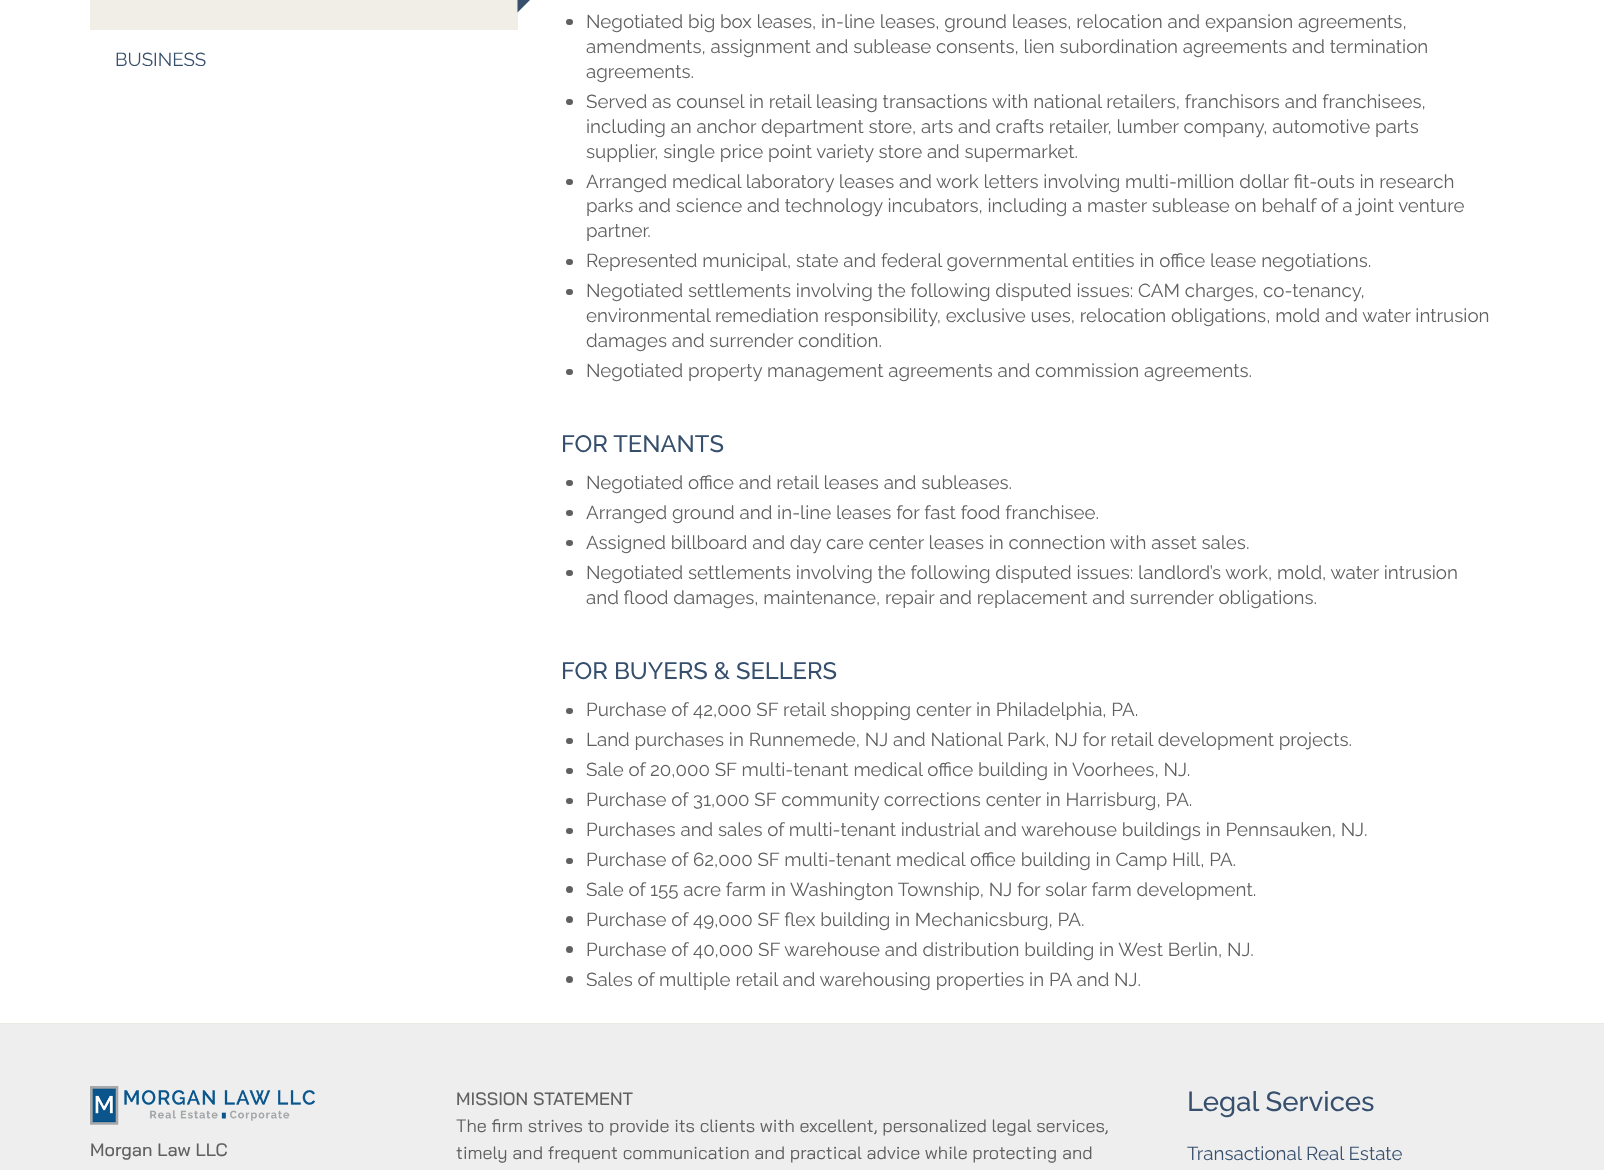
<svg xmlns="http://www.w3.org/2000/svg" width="1604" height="1170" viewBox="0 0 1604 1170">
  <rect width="100%" height="100%" fill="#fff"/>
  <path d="M90 0h428v30H90z" fill="#f1ede7"/>
  <path d="M517.5 12.5V-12.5L530 0Z" fill="#364f6d"/>
  <rect x="566" y="19" width="7" height="6" rx="3" fill="#606060"/>
  <rect x="566" y="99" width="7" height="6" rx="3" fill="#606060"/>
  <rect x="566" y="179" width="7" height="6" rx="3" fill="#606060"/>
  <rect x="566" y="259" width="7" height="6" rx="3" fill="#606060"/>
  <rect x="566" y="289" width="7" height="6" rx="3" fill="#606060"/>
  <rect x="566" y="369" width="7" height="6" rx="3" fill="#606060"/>
  <rect x="566" y="480" width="7" height="6" rx="3" fill="#606060"/>
  <rect x="566" y="510" width="7" height="6" rx="3" fill="#606060"/>
  <rect x="566" y="540" width="7" height="6" rx="3" fill="#606060"/>
  <rect x="566" y="570" width="7" height="6" rx="3" fill="#606060"/>
  <rect x="566" y="708" width="7" height="6" rx="3" fill="#606060"/>
  <rect x="566" y="738" width="7" height="6" rx="3" fill="#606060"/>
  <rect x="566" y="768" width="7" height="6" rx="3" fill="#606060"/>
  <rect x="566" y="798" width="7" height="6" rx="3" fill="#606060"/>
  <rect x="566" y="828" width="7" height="6" rx="3" fill="#606060"/>
  <rect x="566" y="858" width="7" height="6" rx="3" fill="#606060"/>
  <circle cx="569.5" cy="889.5" r="3.5" fill="#606060"/>
  <circle cx="569.5" cy="919.5" r="3.5" fill="#606060"/>
  <circle cx="569.5" cy="949.5" r="3.5" fill="#606060"/>
  <circle cx="569.5" cy="979.5" r="3.5" fill="#606060"/>
  <path d="M0 1024h1604v146H0z" fill="#eee"/>
  <path d="M0 1023h1604v1H0z" fill="#eae9e4"/>
  <image x="90" y="1086" width="225" height="39" href="img/1.png"/>
  <text x="115" y="66" font-family="Raleway" font-size="18.75" fill="#364f6d">BUSINESS</text>
  <g font-family="Raleway" font-size="18.75" fill="#606060">
    <text x="586" y="28">Negotiated big box leases, in-line leases, ground leases, relocation and expansion agreements,</text>
    <text x="586" y="53">amendments, assignment and sublease consents, lien subordination agreements and termination</text>
    <text x="586" y="78">agreements.</text>
    <text x="586" y="108">Served as counsel in retail leasing transactions with national retailers, franchisors and franchisees,</text>
    <text x="586" y="133">including an anchor department store, arts and crafts retailer, lumber company, automotive parts</text>
    <text x="586" y="158">supplier, single price point variety store and supermarket.</text>
    <text x="586" y="188">Arranged medical laboratory leases and work letters involving multi-million dollar fit-outs in research</text>
    <text x="586" y="212">parks and science and technology incubators, including a master sublease on behalf of a joint venture</text>
    <text x="586" y="237">partner.</text>
    <text x="586" y="267">Represented municipal, state and federal governmental entities in office lease negotiations.</text>
    <text x="586" y="297">Negotiated settlements involving the following disputed issues: CAM charges, co-tenancy,</text>
    <text x="586" y="322">environmental remediation responsibility, exclusive uses, relocation obligations, mold and water intrusion</text>
    <text x="586" y="347">damages and surrender condition.</text>
    <text x="586" y="377">Negotiated property management agreements and commission agreements.</text>
  </g>
  <text x="561" y="452" font-family="Raleway" font-size="23.75" font-weight="500" fill="#364f6d">FOR TENANTS</text>
  <g font-family="Raleway" font-size="18.75" fill="#606060">
    <text x="586" y="489">Negotiated office and retail leases and subleases.</text>
    <text x="586" y="519">Arranged ground and in-line leases for fast food franchisee.</text>
    <text x="586" y="549">Assigned billboard and day care center leases in connection with asset sales.</text>
    <text x="586" y="579">Negotiated settlements involving the following disputed issues: landlord’s work, mold, water intrusion</text>
    <text x="586" y="604">and flood damages, maintenance, repair and replacement and surrender obligations.</text>
  </g>
  <text x="561" y="679" font-family="Raleway" font-size="23.75" font-weight="500" fill="#364f6d">FOR BUYERS &amp; SELLERS</text>
  <g font-family="Raleway" font-size="18.75" fill="#606060">
    <text x="586" y="716">Purchase of 42,000 SF retail shopping center in Philadelphia, PA.</text>
    <text x="586" y="746">Land purchases in Runnemede, NJ and National Park, NJ for retail development projects.</text>
    <text x="586" y="776">Sale of 20,000 SF multi-tenant medical office building in Voorhees, NJ.</text>
    <text x="586" y="806">Purchase of 31,000 SF community corrections center in Harrisburg, PA.</text>
    <text x="586" y="836">Purchases and sales of multi-tenant industrial and warehouse buildings in Pennsauken, NJ.</text>
    <text x="586" y="866">Purchase of 62,000 SF multi-tenant medical office building in Camp Hill, PA.</text>
    <text x="586" y="896">Sale of 155 acre farm in Washington Township, NJ for solar farm development.</text>
    <text x="586" y="926">Purchase of 49,000 SF flex building in Mechanicsburg, PA.</text>
    <text x="586" y="956">Purchase of 40,000 SF warehouse and distribution building in West Berlin, NJ.</text>
    <text x="586" y="986">Sales of multiple retail and warehousing properties in PA and NJ.</text>
  </g>
  <g font-family="Bai Jamjuree" font-size="18" font-weight="500" fill="#606060">
    <text x="90" y="1156">Morgan Law LLC</text>
    <text x="456" y="1105">MISSION STATEMENT</text>
  </g>
  <g font-family="Bai Jamjuree" font-size="18" fill="#606060">
    <text x="456" y="1132">The firm strives to provide its clients with excellent, personalized legal services,</text>
    <text x="456" y="1159">timely and frequent communication and practical advice while protecting and</text>
  </g>
  <text x="1187" y="1111" font-family="Raleway" font-size="27.5" font-weight="500" fill="#364f6d">Legal Services</text>
  <text x="1187" y="1160" font-family="Raleway" font-size="18.75" fill="#364f6d">Transactional Real Estate</text>
</svg>
